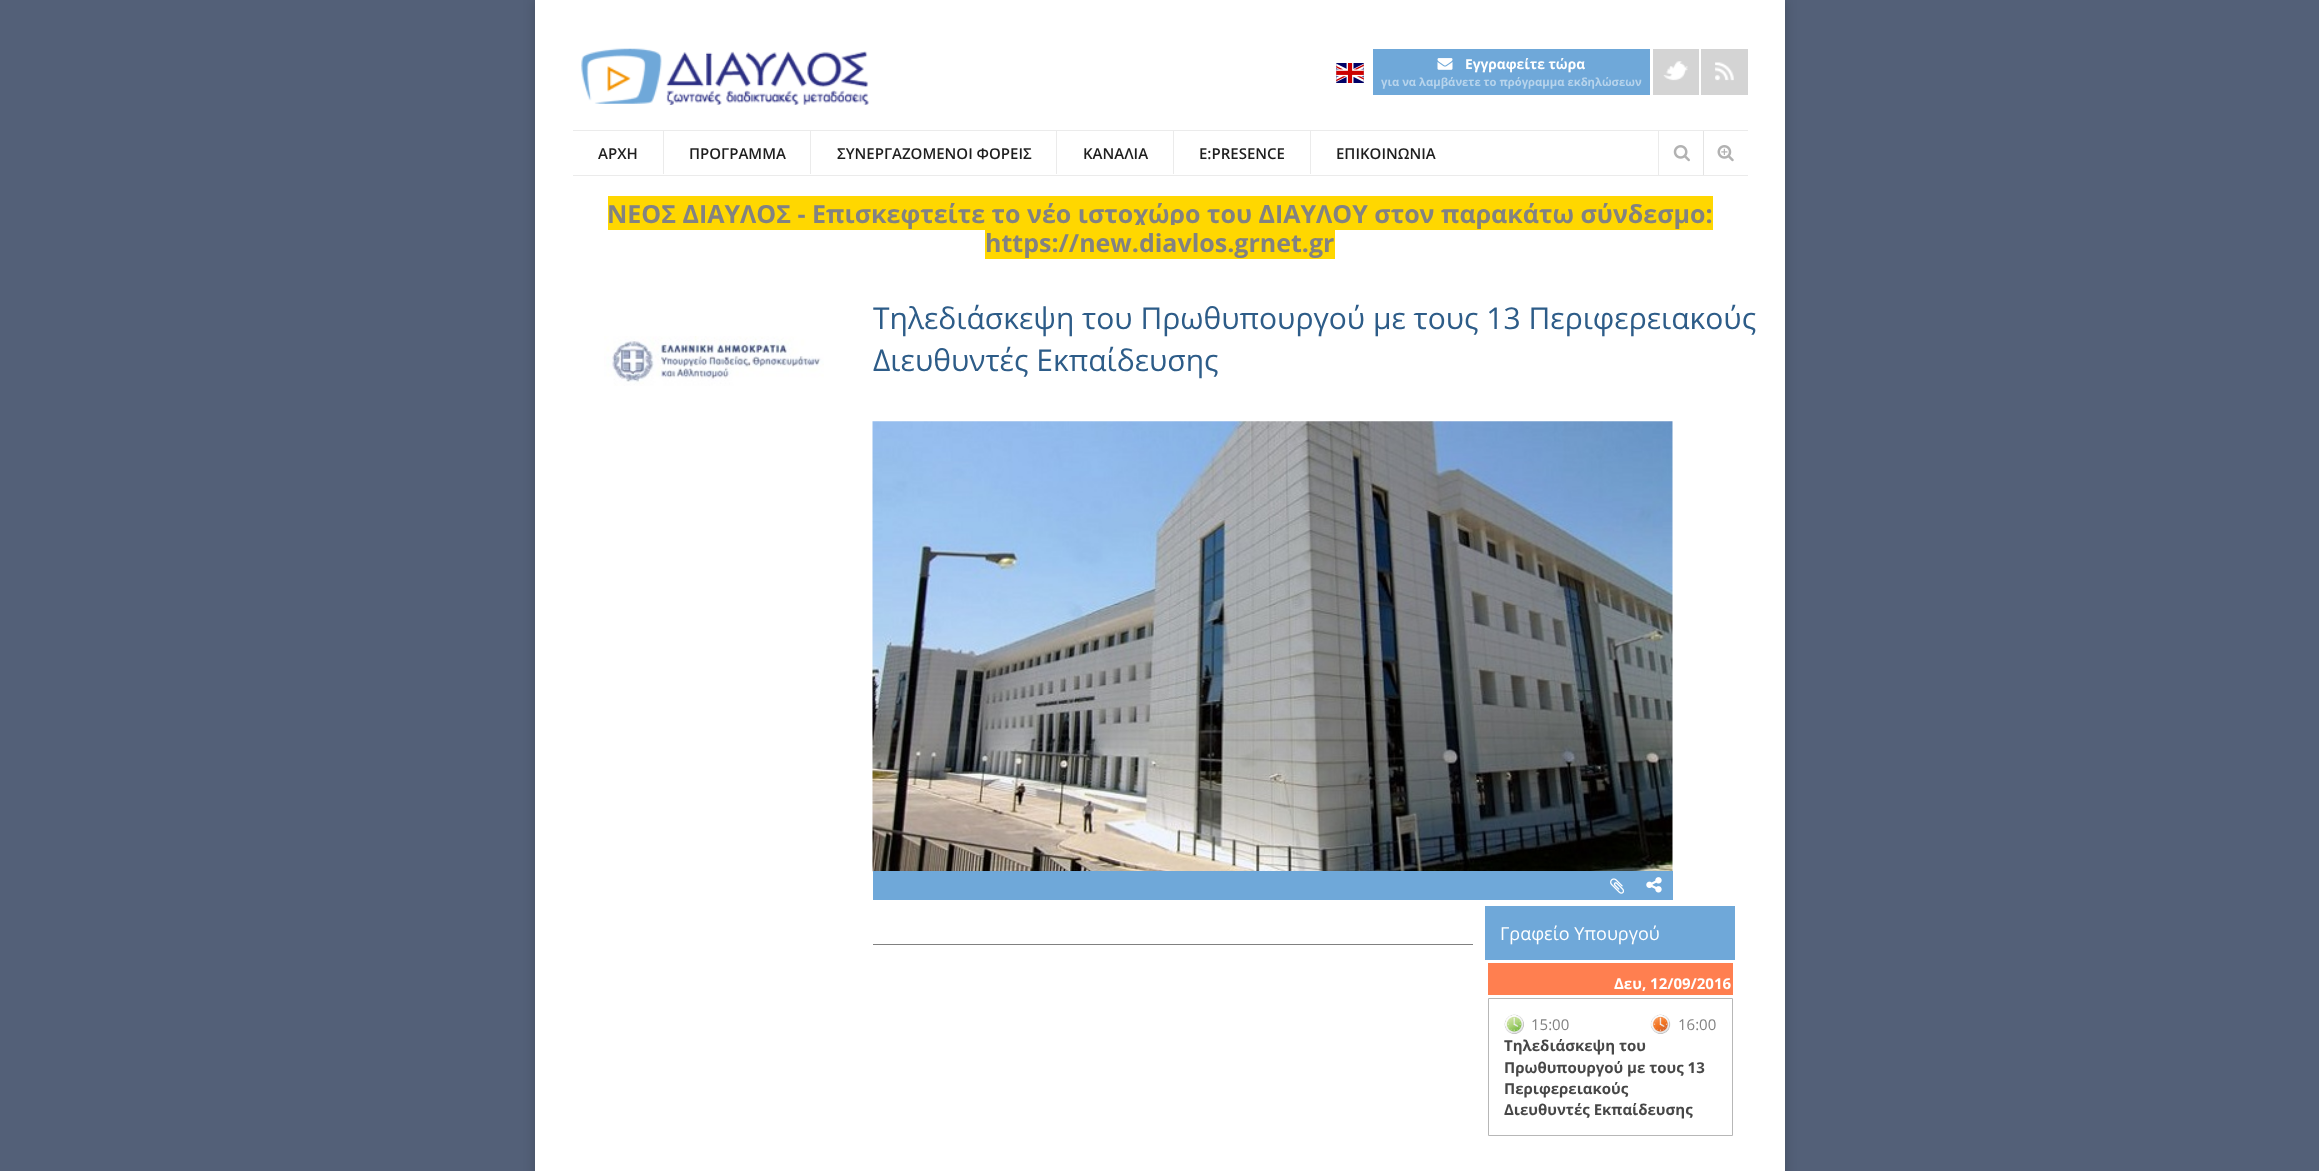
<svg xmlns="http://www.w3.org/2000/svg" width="2319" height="1171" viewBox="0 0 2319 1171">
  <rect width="100%" height="100%" fill="#536078"/>
  <path d="M535 -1h1250v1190H535z" fill="#00000033" filter="blur(6px)"/>
  <path d="M535 0h1250v1171H535z" fill="#fff"/>
  <image x="581" y="48" width="288" height="57" href="img/1.png"/>
  <image x="1336" y="63" width="28" height="20" href="img/2.png"/>
  <path d="M1373 49h277v46H1373z" fill="#6fa8d9"/>
  <image x="1437" y="58" width="16" height="12" href="img/3.png"/>
  <path d="M1653 49h46v46H1653z" fill="#d4d4d4"/>
  <image x="1663" y="61" width="25" height="20" href="img/4.png"/>
  <path d="M1701 49h47v46H1701z" fill="#d4d4d4"/>
  <image x="1715" y="62" width="19" height="19" href="img/5.png"/>
  <path d="M573 130h1175v1H573z" fill="#ebebeb"/>
  <path d="M573 175h1175v1H573z" fill="#ebebeb"/>
  <path d="M663 131h1v43H663z" fill="#ebebeb"/>
  <path d="M810 131h1v43H810z" fill="#ebebeb"/>
  <path d="M1056 131h1v43H1056z" fill="#ebebeb"/>
  <path d="M1173 131h1v43H1173z" fill="#ebebeb"/>
  <path d="M1310 131h1v43H1310z" fill="#ebebeb"/>
  <path d="M1658 131h1v44H1658z" fill="#ebebeb"/>
  <image x="1673" y="145" width="17" height="17" href="img/6.png"/>
  <path d="M1703 131h1v44H1703z" fill="#e4e4e4"/>
  <image x="1717" y="145" width="17" height="17" href="img/7.png"/>
  <path d="M608 196h1105v34H608z" fill="#ffd700"/>
  <image x="604" y="336" width="220" height="50" href="img/8.png"/>
  <image x="872" y="421" width="801" height="451" href="img/9.png"/>
  <path d="M873 871h800v29H873z" fill="#6fa8d9"/>
  <image x="1610" y="878" width="14" height="16" href="img/10.png"/>
  <image x="1646" y="877" width="16" height="16" href="img/11.png"/>
  <path d="M873 944h600v1H873z" fill="#808080"/>
  <path d="M1485 906h250v54H1485z" fill="#6fa8d9"/>
  <path d="M1488 963h245v32H1488z" fill="#ff7f50"/>
  <path d="M1488.5 998.5h244v137H1488.5z" fill="none" stroke="#b7b7b7"/>
  <image x="1504" y="1014" width="20" height="20" href="img/12.png"/>
  <image x="1650" y="1014" width="21" height="20" href="img/13.png"/>
  <text x="1465" y="69" font-family="Open Sans" font-size="13.75" font-weight="bold" fill="#fff">Εγγραφείτε τώρα</text>
  <text x="1381" y="86" font-family="Open Sans" font-size="11.25" font-weight="bold" fill="#b7d4ec">για να λαμβάνετε το πρόγραμμα εκδηλώσεων</text>
  <g font-family="Open Sans" font-size="15" font-weight="600" fill="#1e1e1e">
    <text x="598" y="159">ΑΡΧΗ</text>
    <text x="689" y="159">ΠΡΟΓΡΑΜΜΑ</text>
    <text x="837" y="159">ΣΥΝΕΡΓΑΖΟΜΕΝΟΙ ΦΟΡΕΙΣ</text>
    <text x="1083" y="159">ΚΑΝΑΛΙΑ</text>
    <text x="1199" y="159">E:PRESENCE</text>
    <text x="1336" y="159">ΕΠΙΚΟΙΝΩΝΙΑ</text>
  </g>
  <text x="607" y="223" font-family="Open Sans" font-size="25" font-weight="bold" fill="#828282">ΝΕΟΣ ΔΙΑΥΛΟΣ - Επισκεφτείτε το νέο ιστοχώρο του ΔΙΑΥΛΟΥ στον παρακάτω σύνδεσμο:</text>
  <path d="M985 225h350v34H985z" fill="#ffd700"/>
  <text x="985" y="252" font-family="Open Sans" font-size="25" font-weight="bold" fill="#828282">https://new.diavlos.grnet.gr</text>
  <g font-family="Open Sans" font-size="30" fill="#2d5c88">
    <text x="873" y="329">Τηλεδιάσκεψη του Πρωθυπουργού με τους 13 Περιφερειακούς</text>
    <text x="873" y="371">Διευθυντές Εκπαίδευσης</text>
  </g>
  <text x="1500" y="940" font-family="Open Sans" font-size="18" fill="#fff">Γραφείο Υπουργού</text>
  <text x="1614" y="989" font-family="Open Sans" font-size="15" font-weight="bold" fill="#fff">Δευ, 12/09/2016</text>
  <g font-family="Open Sans" font-size="15" fill="#828282">
    <text x="1531" y="1030">15:00</text>
    <text x="1678" y="1030">16:00</text>
  </g>
  <g font-family="Open Sans" font-size="15" font-weight="bold" fill="#474747">
    <text x="1504" y="1051">Τηλεδιάσκεψη του</text>
    <text x="1504" y="1073">Πρωθυπουργού με τους 13</text>
    <text x="1504" y="1094">Περιφερειακούς</text>
    <text x="1504" y="1115">Διευθυντές Εκπαίδευσης</text>
  </g>
</svg>
